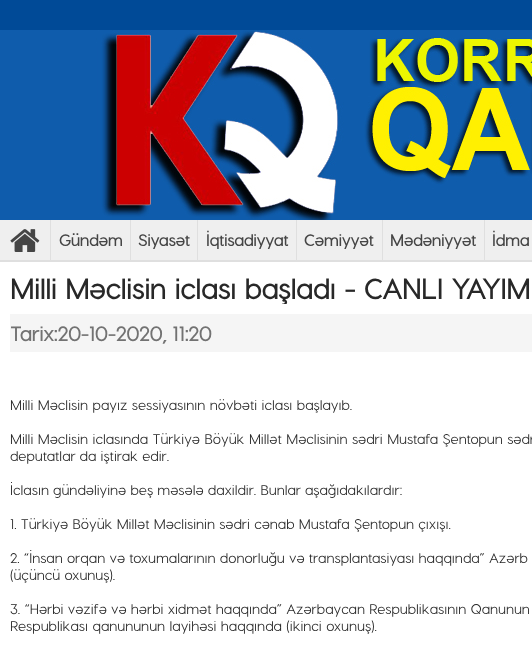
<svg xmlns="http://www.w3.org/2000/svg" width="532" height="645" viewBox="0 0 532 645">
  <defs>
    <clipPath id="clip1"><path d="M10 272h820v32H10z"/></clipPath>
  </defs>
  <rect width="100%" height="100%" fill="#004a97"/>
  <image x="0" y="30" width="532" height="190" href="img/1.png"/>
  <path d="M0 262h532v383H0z" fill="#fff"/>
  <path d="M0 220h532v40H0z" fill="#efefef"/>
  <path d="M0 260h532v2H0z" fill="#dfdfdf"/>
  <path d="M50 220h1v40H50z" fill="#dfdfdf"/>
  <image x="10" y="229" width="30" height="23" href="img/2.png"/>
  <path d="M130 220h1v40H130z" fill="#dfdfdf"/>
  <path d="M197 220h1v40H197z" fill="#dfdfdf"/>
  <path d="M296 220h1v40H296z" fill="#dfdfdf"/>
  <path d="M382 220h1v40H382z" fill="#dfdfdf"/>
  <path d="M484 220h1v40H484z" fill="#dfdfdf"/>
  <path d="M10 314h522v38H10z" fill="#f5f5f5"/>
  <g font-family="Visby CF" font-size="16" font-weight="bold" fill="#454545">
    <text x="59" y="246">Gündəm</text>
    <text x="138" y="246">Siyasət</text>
    <text x="206" y="246">İqtisadiyyat</text>
    <text x="304" y="246">Cəmiyyət</text>
    <text x="390" y="246">Mədəniyyət</text>
    <text x="492" y="246">İdma</text>
  </g>
  <g clip-path="url(#clip1)">
    <text x="10" y="299" word-spacing="0.25" font-family="Visby CF" font-size="28" font-weight="bold" fill="#282828">Milli Məclisin iclası başladı - CANLI YAYIM</text>
  </g>
  <text x="10" y="341" font-family="Visby CF" font-size="20" font-weight="bold" fill="#727272">Tarix:20-10-2020, 11:20</text>
  <g font-family="Visby CF" font-size="14" font-weight="500" fill="#282828">
    <text x="10" y="410" word-spacing="0.25">Milli Məclisin payız sessiyasının növbəti iclası başlayıb.</text>
    <text x="10" y="444" word-spacing="0.25">Milli Məclisin iclasında Türkiyə Böyük Millət Məclisinin sədri Mustafa Şentopun sədr</text>
    <text x="10" y="461">deputatlar da iştirak edir.</text>
    <text x="10" y="495">İclasın gündəliyinə beş məsələ daxildir. Bunlar aşağıdakılardır:</text>
    <text x="10" y="529">1. Türkiyə Böyük Millət Məclisinin sədri cənab Mustafa Şentopun çıxışı.</text>
    <text x="10" y="563">2. “İnsan orqan və toxumalarının donorluğu və transplantasiyası haqqında” Azərb</text>
    <text x="10" y="580">(üçüncü oxunuş).</text>
    <text x="10" y="614">3. “Hərbi vəzifə və hərbi xidmət haqqında” Azərbaycan Respublikasının Qanunun</text>
    <text x="10" y="631" word-spacing="0.25">Respublikası qanununun layihəsi haqqında (ikinci oxunuş).</text>
  </g>
</svg>
